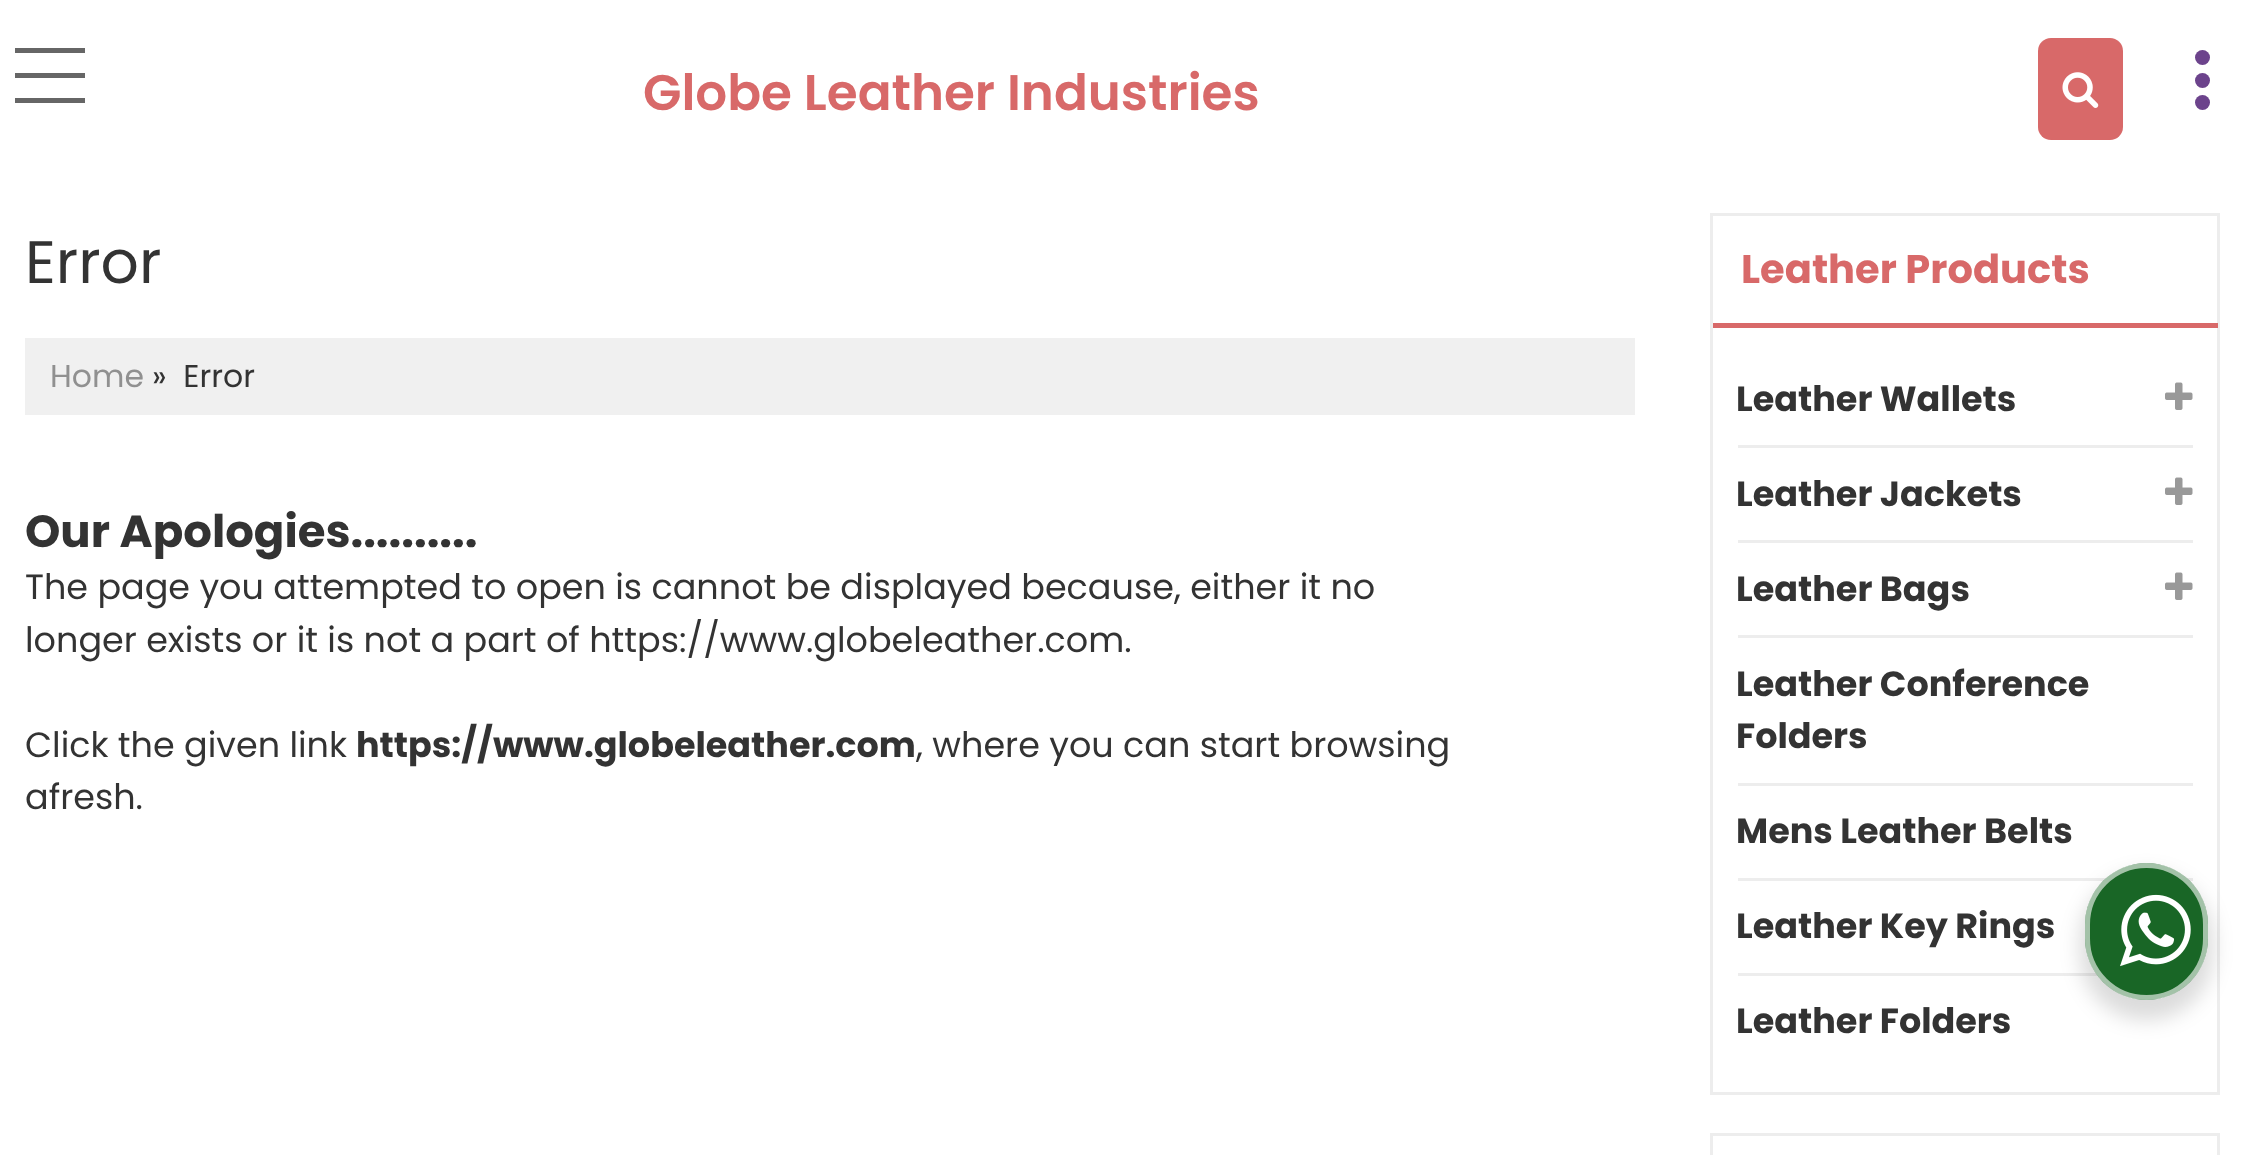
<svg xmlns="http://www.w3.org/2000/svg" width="2244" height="1155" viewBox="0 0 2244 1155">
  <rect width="100%" height="100%" fill="#fff"/>
  <path d="M15 73h70v5H15z" fill="#666"/>
  <path d="M15 48h70v5H15z" fill="#666"/>
  <path d="M15 98h70v5H15z" fill="#666"/>
  <rect x="2038" y="38" width="85" height="102" rx="13" fill="#d86969"/>
  <image x="2062" y="72" width="37" height="36" href="img/1.png"/>
  <circle cx="2202.5" cy="80.5" r="7.5" fill="#6c438c"/>
  <circle cx="2202.5" cy="57.5" r="7.5" fill="#6c438c"/>
  <circle cx="2202.5" cy="102.5" r="7.5" fill="#6c438c"/>
  <path d="M25 338h1610v77H25z" fill="#f0f0f0"/>
  <path d="M1711.5 214.5h507v879H1711.5z" fill="none" stroke="#ededed" stroke-width="3"/>
  <path d="M1713 323h505v5H1713z" fill="#d86969"/>
  <path d="M1738 445h455v3H1738z" fill="#ededed"/>
  <image x="2165" y="382" width="28" height="28" href="img/2.png"/>
  <path d="M1738 540h455v3H1738z" fill="#ededed"/>
  <image x="2165" y="477" width="28" height="28" href="img/2.png"/>
  <path d="M1738 635h455v3H1738z" fill="#ededed"/>
  <image x="2165" y="572" width="28" height="28" href="img/2.png"/>
  <path d="M1738 783h455v3H1738z" fill="#ededed"/>
  <path d="M1738 878h455v3H1738z" fill="#ededed"/>
  <path d="M1738 973h360v3H1738z" fill="#ededed"/>
  <path d="M1711.5 1134.5h507v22H1711.5z" fill="none" stroke="#ededed" stroke-width="3"/>
  <rect x="2080" y="873" width="133" height="147" rx="66.5" fill="#00000024" filter="blur(10px)"/>
  <rect x="2085" y="863" width="123" height="137" rx="61.5" fill="#196626"/>
  <rect x="2087.5" y="865.5" width="118" height="132" rx="59" fill="none" stroke="#ffffff99" stroke-width="5"/>
  <image x="2120" y="894" width="71" height="73" href="img/3.png"/>
  <text x="643" y="110" font-family="Poppins" font-size="50" font-weight="600" fill="#d86969">Globe Leather Industries</text>
  <text x="25" y="283" font-family="Poppins" font-size="60" fill="#333">Error</text>
  <text x="50" y="387" font-family="Poppins" font-size="31.5" fill="#909090">Home</text>
  <text x="152" y="387" font-family="Poppins" font-size="31.5" fill="#333" xml:space="preserve">»  Error</text>
  <text x="25" y="547" font-family="Poppins" font-size="45" font-weight="bold" fill="#333">Our Apologies..........</text>
  <g font-family="Poppins" font-size="35" fill="#333">
    <text x="25" y="599">The page you attempted to open is cannot be displayed because, either it no</text>
    <text x="25" y="652">longer exists or it is not a part of https://www.globeleather.com.</text>
    <text x="25" y="757">Click the given link</text>
  </g>
  <text x="356" y="757" font-family="Poppins" font-size="35" font-weight="bold" fill="#333">https://www.globeleather.com</text>
  <g font-family="Poppins" font-size="35" fill="#333">
    <text x="916" y="757">, where you can start browsing</text>
    <text x="25" y="809">afresh.</text>
  </g>
  <text x="1741" y="283" font-family="Poppins" font-size="40" font-weight="bold" fill="#d86969">Leather Products</text>
  <g font-family="Poppins" font-size="35" font-weight="bold" fill="#333">
    <text x="1736" y="411">Leather Wallets</text>
    <text x="1736" y="506">Leather Jackets</text>
    <text x="1736" y="601">Leather Bags</text>
    <text x="1736" y="696">Leather Conference</text>
    <text x="1736" y="748">Folders</text>
    <text x="1736" y="843">Mens Leather Belts</text>
    <text x="1736" y="938">Leather Key Rings</text>
    <text x="1736" y="1033">Leather Folders</text>
  </g>
</svg>
